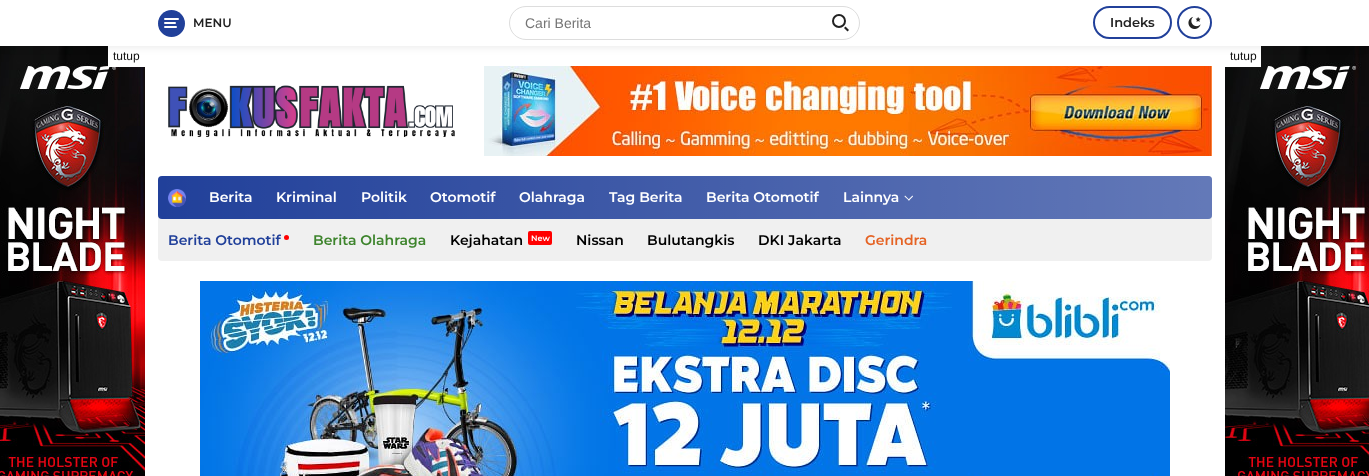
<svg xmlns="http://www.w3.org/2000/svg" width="1369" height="476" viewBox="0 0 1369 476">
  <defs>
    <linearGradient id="g1" gradientUnits="userSpaceOnUse" x1="158" y1="198" x2="1212" y2="197"><stop offset="0" stop-color="#fff" stop-opacity="0"/><stop offset="1" stop-color="#fff" stop-opacity="0.3"/></linearGradient>
  </defs>
  <rect width="100%" height="100%" fill="#fff"/>
  <image x="0" y="46" width="145" height="430" href="img/2.png"/>
  <path d="M108 46h37v21H108z" fill="#fff"/>
  <image x="1225" y="46" width="144" height="430" href="img/3.png"/>
  <path d="M1225 46h36v21H1225z" fill="#fff"/>
  <path d="M0 0h1369v46H0z" fill="#0000001a" filter="blur(5px)"/>
  <path d="M0 0h1369v46H0z" fill="#fff"/>
  <circle cx="171.5" cy="23.5" r="13.5" fill="#21409a"/>
  <rect x="164" y="18" width="15" height="2" rx="1" fill="#fff"/>
  <rect x="164" y="22" width="12" height="2" rx="1" fill="#fff"/>
  <rect x="164" y="26" width="13" height="2" rx="1" fill="#fff"/>
  <rect x="509.5" y="6.5" width="350" height="33" rx="16.5" fill="none" stroke="#ddd"/>
  <circle cx="839" cy="21" r="6" fill="none" stroke="#222" stroke-width="2"/>
  <path d="M845.5 26.5L849 30L847.5 31.5L844 28Z" fill="#222"/>
  <rect x="1094" y="7" width="77" height="31" rx="15.5" fill="none" stroke="#21409a" stroke-width="2"/>
  <path d="M1194.5 7C1203.5 7 1211 14 1211 22.5C1211 31 1203.5 38 1194.5 38C1185.5 38 1178 31 1178 22.5C1178 14 1185.5 7 1194.5 7Z" fill="none" stroke="#21409a" stroke-width="2"/>
  <image x="1188" y="16" width="13" height="13" href="img/1.png"/>
  <image x="168" y="85" width="287" height="52" href="img/4.png"/>
  <image x="484" y="66" width="728" height="90" href="img/5.png"/>
  <rect x="158" y="176" width="1054" height="85" rx="4" fill="#f0f0f0"/>
  <rect x="158" y="176" width="1054" height="43" rx="4" fill="#21409a"/>
  <rect x="158" y="176" width="1054" height="43" rx="4" fill="url(#g1)"/>
  <image x="168" y="189" width="18" height="18" href="img/6.png"/>
  <path d="M912.5 195.5L913 196.5L909 200.5L908 200Z" fill="#fff"/>
  <path d="M905 195.5L909.5 200L909 200.5L904.5 196.5Z" fill="#fff"/>
  <circle cx="286.5" cy="237.5" r="2.5" fill="#f00"/>
  <rect x="528" y="231" width="24" height="14" rx="2" fill="#f00"/>
  <image x="200" y="281" width="970" height="195" href="img/7.png"/>
  <text x="193" y="27" font-family="Montserrat" font-size="12" font-weight="600" fill="#222">MENU</text>
  <text x="525" y="28" font-family="Liberation Sans" font-size="14" fill="#757575">Cari Berita</text>
  <text x="1110" y="27" font-family="Montserrat" font-size="13" font-weight="600" fill="#222">Indeks</text>
  <g font-family="Liberation Sans" font-size="12" fill="#111">
    <text x="113" y="60">tutup</text>
    <text x="1230" y="60">tutup</text>
  </g>
  <g font-family="Montserrat" font-size="14" font-weight="600" fill="#fff">
    <text x="209" y="202">Berita</text>
    <text x="276" y="202">Kriminal</text>
    <text x="361" y="202">Politik</text>
    <text x="430" y="202">Otomotif</text>
    <text x="519" y="202">Olahraga</text>
    <text x="609" y="202">Tag Berita</text>
    <text x="706" y="202">Berita Otomotif</text>
    <text x="843" y="202">Lainnya</text>
  </g>
  <text x="168" y="245" font-family="Montserrat" font-size="14" font-weight="600" fill="#21409a">Berita Otomotif</text>
  <text x="313" y="245" font-family="Montserrat" font-size="14" font-weight="600" fill="#3d842c">Berita Olahraga</text>
  <text x="450" y="245" font-family="Montserrat" font-size="14" font-weight="600" fill="#000">Kejahatan</text>
  <text x="531" y="241" font-family="Montserrat" font-size="8" font-weight="600" fill="#fff">New</text>
  <g font-family="Montserrat" font-size="14" font-weight="600" fill="#000">
    <text x="576" y="245">Nissan</text>
    <text x="647" y="245">Bulutangkis</text>
    <text x="758" y="245">DKI Jakarta</text>
  </g>
  <text x="865" y="245" font-family="Montserrat" font-size="14" font-weight="600" fill="#e56324">Gerindra</text>
</svg>
